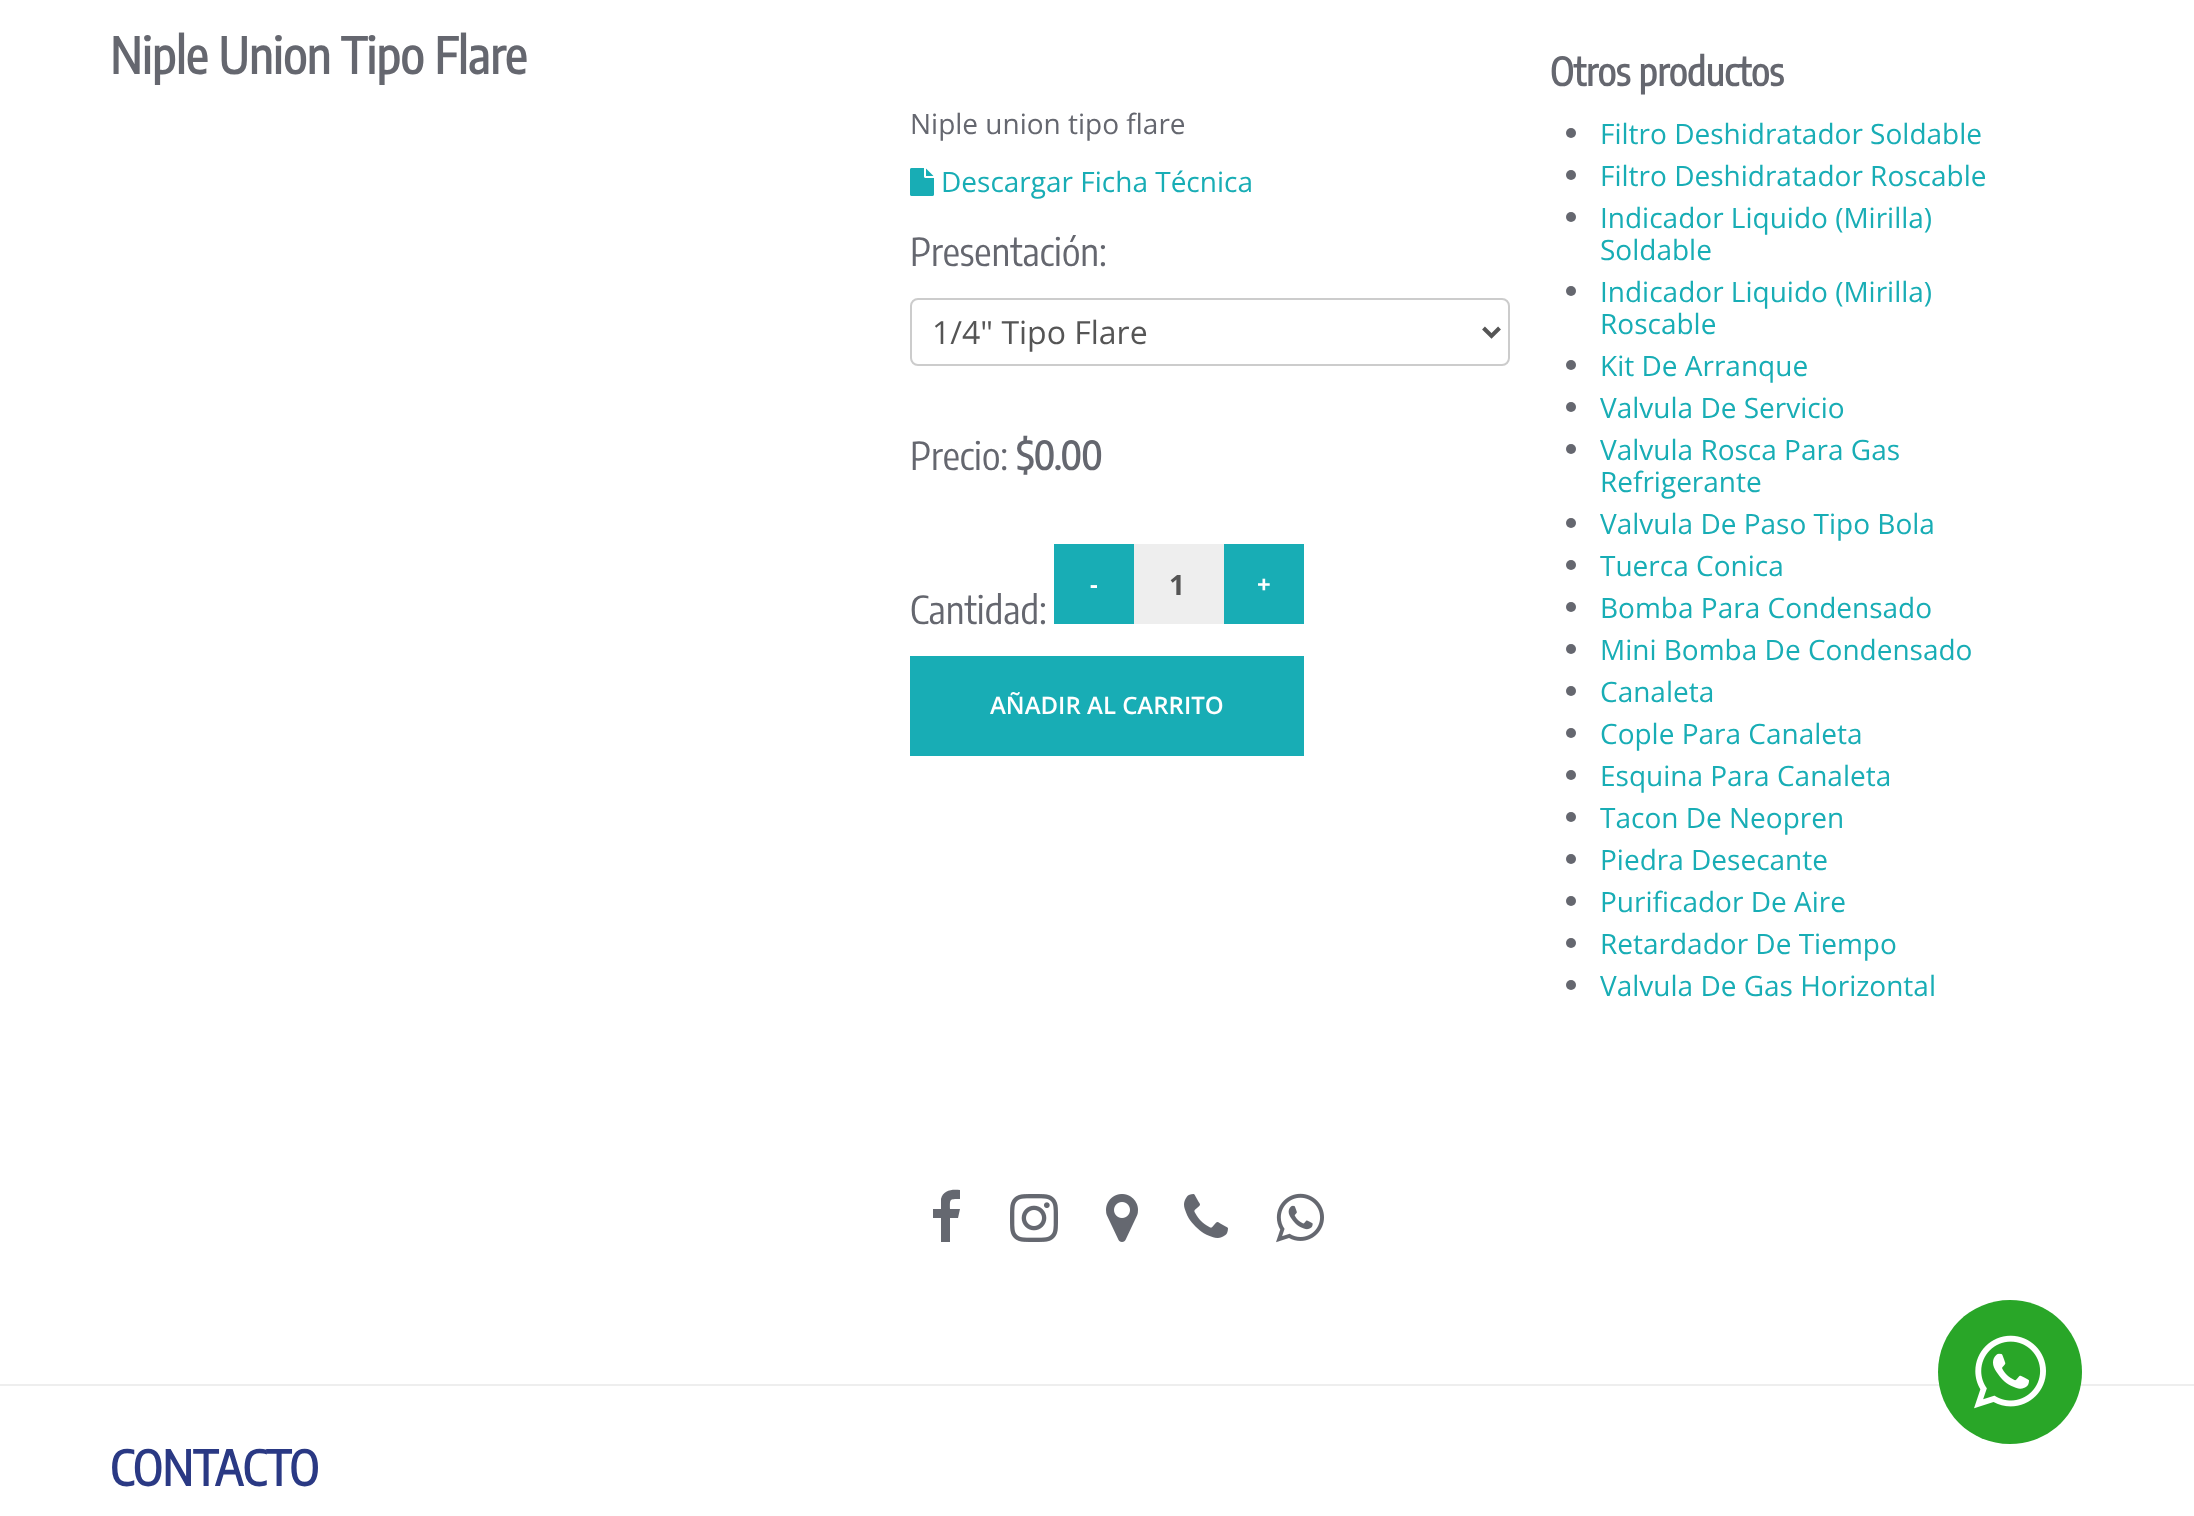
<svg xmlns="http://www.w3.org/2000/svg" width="2194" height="1516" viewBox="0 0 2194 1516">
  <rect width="100%" height="100%" fill="#fff"/>
  <image x="910" y="168" width="24" height="28" href="img/1.png"/>
  <rect x="911" y="299" width="598" height="66" rx="7" fill="none" stroke="#ccc" stroke-width="2"/>
  <path d="M1483.5 328L1491.5 336L1499.5 328" fill="none" stroke="#555" stroke-width="4"/>
  <path d="M1054 544h80v80H1054z" fill="#18adb5"/>
  <path d="M1134 544h90v80H1134z" fill="#eee"/>
  <path d="M1224 544h80v80H1224z" fill="#18adb5"/>
  <path d="M910 656h394v100H910z" fill="#18adb5"/>
  <circle cx="1571" cy="133" r="5" fill="#65676f"/>
  <circle cx="1571" cy="175" r="5" fill="#65676f"/>
  <circle cx="1571" cy="217" r="5" fill="#65676f"/>
  <circle cx="1571" cy="291" r="5" fill="#65676f"/>
  <circle cx="1571" cy="365" r="5" fill="#65676f"/>
  <circle cx="1571" cy="407" r="5" fill="#65676f"/>
  <circle cx="1571" cy="449" r="5" fill="#65676f"/>
  <circle cx="1571" cy="523" r="5" fill="#65676f"/>
  <circle cx="1571" cy="565" r="5" fill="#65676f"/>
  <circle cx="1571" cy="607" r="5" fill="#65676f"/>
  <circle cx="1571" cy="649" r="5" fill="#65676f"/>
  <circle cx="1571" cy="691" r="5" fill="#65676f"/>
  <circle cx="1571" cy="733" r="5" fill="#65676f"/>
  <circle cx="1571" cy="775" r="5" fill="#65676f"/>
  <circle cx="1571" cy="817" r="5" fill="#65676f"/>
  <circle cx="1571" cy="859" r="5" fill="#65676f"/>
  <circle cx="1571" cy="901" r="5" fill="#65676f"/>
  <circle cx="1571" cy="943" r="5" fill="#65676f"/>
  <circle cx="1571" cy="985" r="5" fill="#65676f"/>
  <path d="M960 1190C952 1189 943 1190 941 1199V1209H933V1218H941V1242H950V1218H958L960 1209H950C950 1199 949 1199 960 1199Z" fill="#656870"/>
  <image x="1010" y="1194" width="48" height="48" href="img/2.png"/>
  <image x="1106" y="1194" width="32" height="48" href="img/3.png"/>
  <image x="1184" y="1194" width="44" height="44" href="img/4.png"/>
  <image x="1276" y="1193" width="48" height="50" href="img/5.png"/>
  <path d="M0 1384h2194v2H0z" fill="#eee"/>
  <path d="M2082 1372C2082 1332 2050 1300 2010 1300C1970 1300 1938 1332 1938 1372C1938 1412 1970 1444 2010 1444C2050 1444 2082 1412 2082 1372Z" fill="#29a628"/>
  <image x="1974" y="1335" width="72" height="74" href="img/6.png"/>
  <text x="110" y="74" font-family="Encode Sans Condensed" font-size="49.5" font-weight="bold" fill="#65676f">Niple Union Tipo Flare</text>
  <text x="910" y="134" font-family="Open Sans" font-size="28" fill="#65676f">Niple union tipo flare</text>
  <text x="941" y="192" font-family="Open Sans" font-size="28" fill="#18adb5">Descargar Ficha Técnica</text>
  <text x="910" y="266" font-family="Encode Sans Condensed" font-size="38.5" fill="#65676f">Presentación:</text>
  <text x="932" y="344" font-family="Open Sans" font-size="32" fill="#555">1/4" Tipo Flare</text>
  <text x="910" y="470" font-family="Encode Sans Condensed" font-size="38.5" fill="#65676f">Precio:</text>
  <text x="1016" y="470" font-family="Encode Sans Condensed" font-size="38.5" font-weight="bold" fill="#65676f">$0.00</text>
  <text x="1090" y="593" font-family="Open Sans" font-size="24" font-weight="bold" fill="#fff">-</text>
  <text x="1169" y="595" font-family="Open Sans" font-size="28" font-weight="bold" fill="#555">1</text>
  <text x="1257" y="593" font-family="Open Sans" font-size="24" font-weight="bold" fill="#fff">+</text>
  <text x="910" y="624" font-family="Encode Sans Condensed" font-size="38.5" fill="#65676f">Cantidad:</text>
  <text x="990" y="714" font-family="Open Sans" font-size="24" font-weight="600" fill="#fff">AÑADIR AL CARRITO</text>
  <text x="1550" y="86" font-family="Encode Sans Condensed" font-size="38.5" font-weight="bold" fill="#65676f">Otros productos</text>
  <g font-family="Open Sans" font-size="28" fill="#18adb5">
    <text x="1600" y="144">Filtro Deshidratador Soldable</text>
    <text x="1600" y="186">Filtro Deshidratador Roscable</text>
    <text x="1600" y="228">Indicador Liquido (Mirilla)</text>
    <text x="1600" y="260">Soldable</text>
    <text x="1600" y="302">Indicador Liquido (Mirilla)</text>
    <text x="1600" y="334">Roscable</text>
    <text x="1600" y="376">Kit De Arranque</text>
    <text x="1600" y="418">Valvula De Servicio</text>
    <text x="1600" y="460">Valvula Rosca Para Gas</text>
    <text x="1600" y="492">Refrigerante</text>
    <text x="1600" y="534">Valvula De Paso Tipo Bola</text>
    <text x="1600" y="576">Tuerca Conica</text>
    <text x="1600" y="618">Bomba Para Condensado</text>
    <text x="1600" y="660">Mini Bomba De Condensado</text>
    <text x="1600" y="702">Canaleta</text>
    <text x="1600" y="744">Cople Para Canaleta</text>
    <text x="1600" y="786">Esquina Para Canaleta</text>
    <text x="1600" y="828">Tacon De Neopren</text>
    <text x="1600" y="870">Piedra Desecante</text>
    <text x="1600" y="912">Purificador De Aire</text>
    <text x="1600" y="954">Retardador De Tiempo</text>
    <text x="1600" y="996">Valvula De Gas Horizontal</text>
  </g>
  <text x="110" y="1486" font-family="Encode Sans Condensed" font-size="48" font-weight="bold" fill="#2a3984">CONTACTO</text>
</svg>
